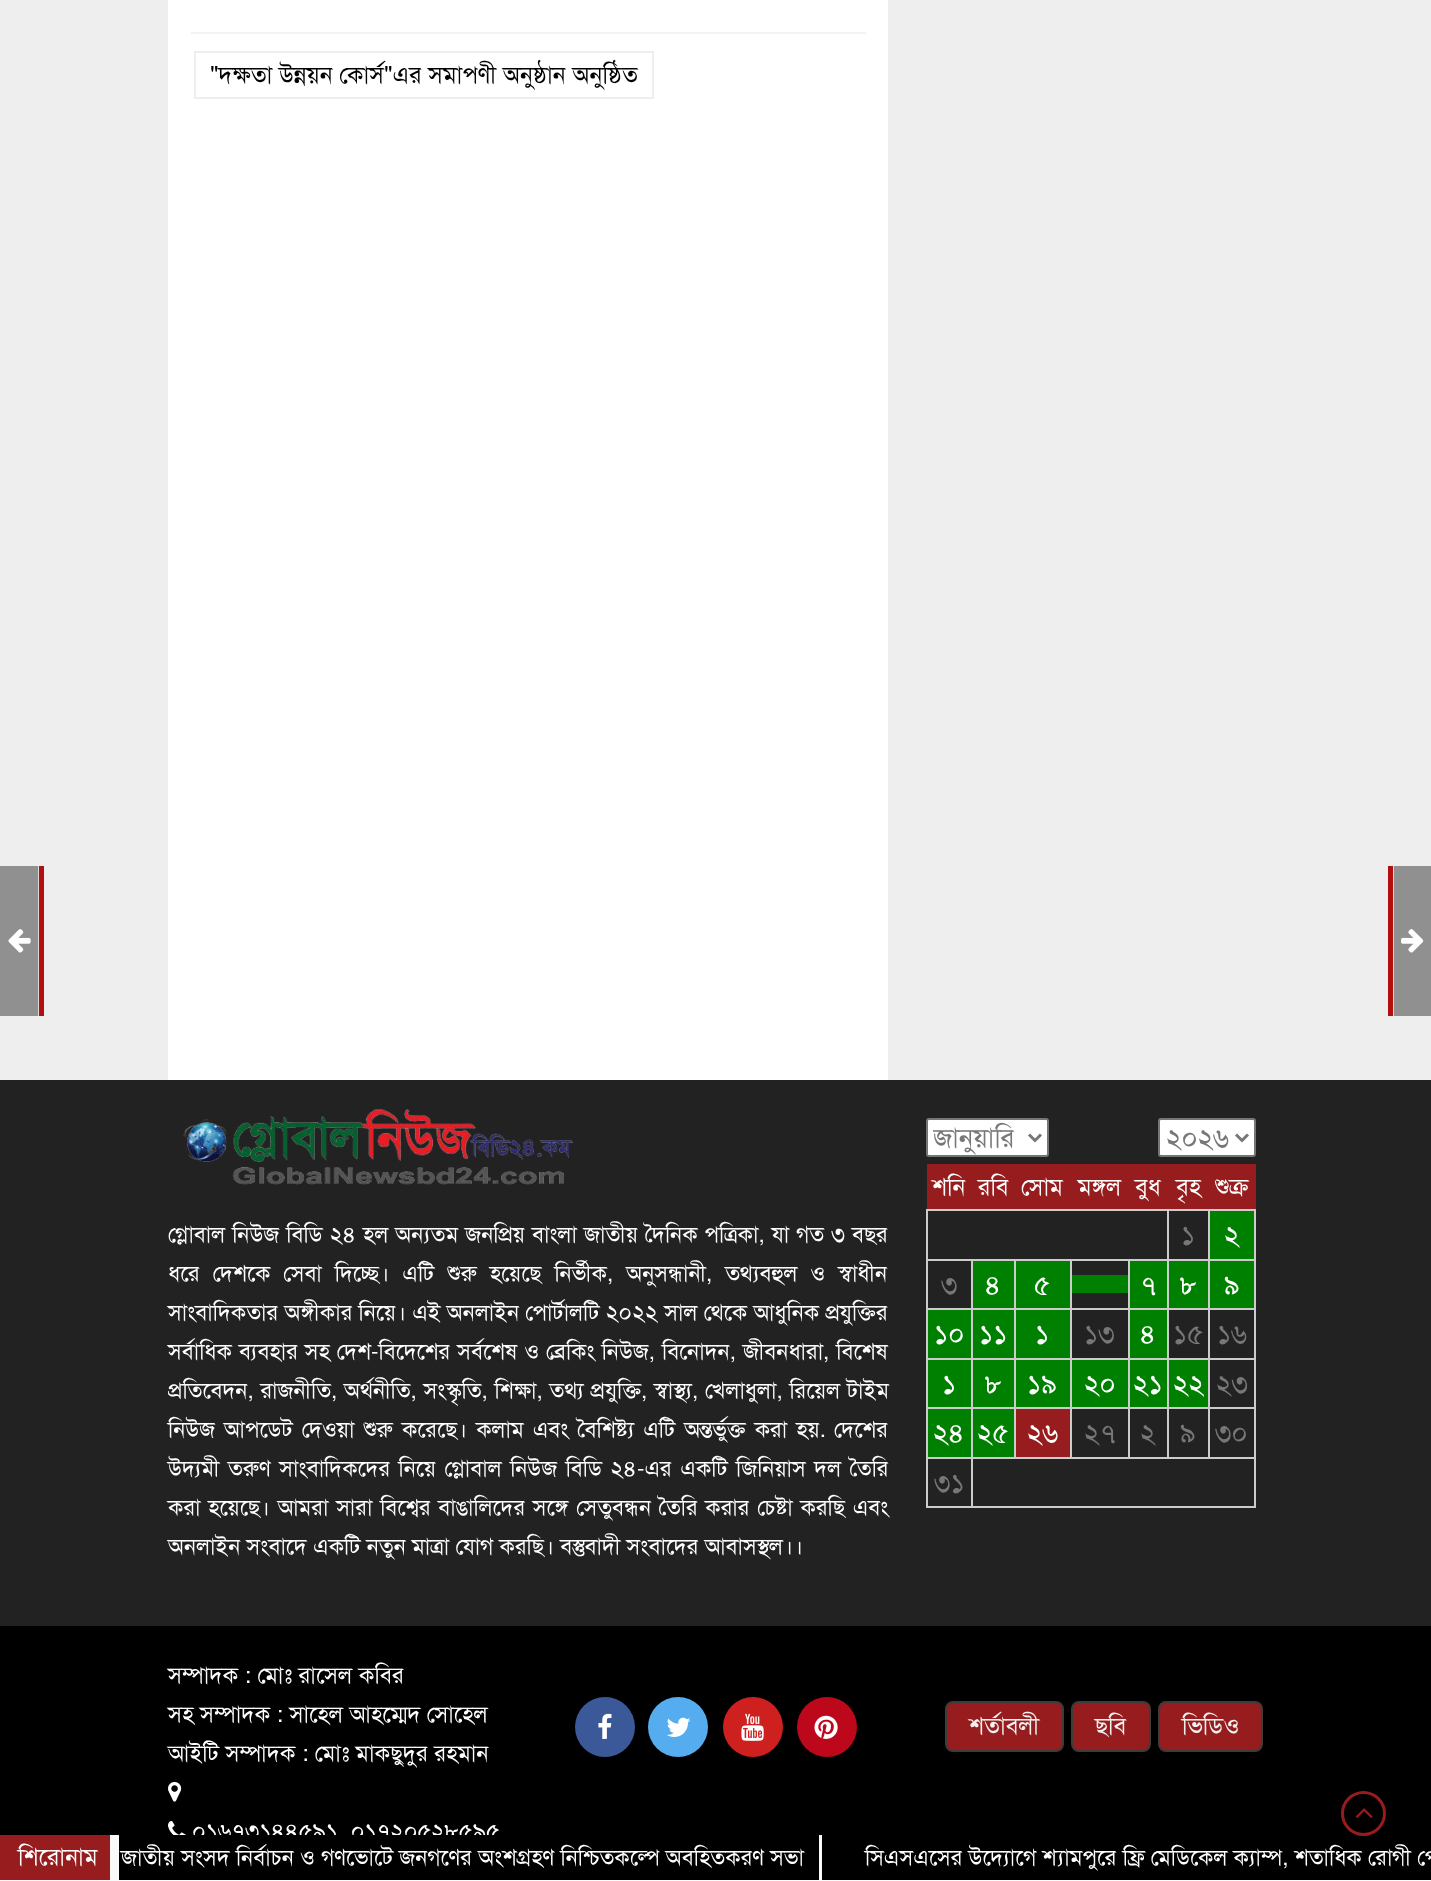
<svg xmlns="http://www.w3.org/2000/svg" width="1431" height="1881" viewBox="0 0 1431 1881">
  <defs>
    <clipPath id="clip1"><path d="M933 1119h90v36H933z"/></clipPath>
  </defs>
  <rect width="100%" height="100%" fill="#eee"/>
  <path d="M168 0h720v1080H168z" fill="#fff"/>
  <path d="M191 32h675v2H191z" fill="#f3f3f3"/>
  <path d="M195 52h458v46H195z" fill="none" stroke="#eee" stroke-width="2"/>
  <path d="M0 866h38v150H0z" fill="#909090"/>
  <image x="8" y="929" width="23" height="24" href="img/1.png"/>
  <path d="M38 866h1v150H38z" fill="#dcdcdc"/>
  <path d="M39 866h5v150H39z" fill="#b30f0f"/>
  <path d="M1393 866h1v150H1393z" fill="#dcdcdc"/>
  <path d="M1388 866h5v150H1388z" fill="#b30f0f"/>
  <path d="M1394 866h37v150H1394z" fill="#909090"/>
  <image x="1401" y="929" width="23" height="24" href="img/2.png"/>
  <path d="M0 1080h1431v546H0z" fill="#222"/>
  <image x="183" y="1109" width="390" height="76" href="img/3.png"/>
  <rect x="927" y="1119" width="121" height="37" rx="2" fill="#fff" stroke="#767676" stroke-width="2"/>
  <path d="M1029 1134.5L1035 1140.5L1041 1134.5" fill="none" stroke="#777" stroke-width="3"/>
  <rect x="1159" y="1119" width="96" height="37" rx="2" fill="#fff" stroke="#767676" stroke-width="2"/>
  <path d="M1236 1134.5L1242 1140.5L1248 1134.5" fill="none" stroke="#777" stroke-width="3"/>
  <path d="M927 1164h329v45H927z" fill="#971c1e"/>
  <path d="M1208 1209h48v2H1208z" fill="#ccc"/>
  <path d="M1208 1259h48v2H1208z" fill="#ccc"/>
  <path d="M1208 1308h48v2H1208z" fill="#ccc"/>
  <path d="M1208 1358h48v2H1208z" fill="#ccc"/>
  <path d="M1208 1407h48v2H1208z" fill="#ccc"/>
  <path d="M971 1457h285v2H971z" fill="#ccc"/>
  <path d="M1208 1407h2v51H1208z" fill="#ccc"/>
  <path d="M1167 1407h42v2H1167z" fill="#ccc"/>
  <path d="M1208 1358h2v51H1208z" fill="#ccc"/>
  <path d="M1167 1358h42v2H1167z" fill="#ccc"/>
  <path d="M1208 1308h2v51H1208z" fill="#ccc"/>
  <path d="M1167 1308h42v2H1167z" fill="#ccc"/>
  <path d="M1208 1259h2v51H1208z" fill="#ccc"/>
  <path d="M1167 1259h42v2H1167z" fill="#ccc"/>
  <path d="M1208 1209h2v51H1208z" fill="#ccc"/>
  <path d="M1167 1209h42v2H1167z" fill="#ccc"/>
  <path d="M1167 1407h2v51H1167z" fill="#ccc"/>
  <path d="M1128 1407h41v2H1128z" fill="#ccc"/>
  <path d="M1167 1358h2v51H1167z" fill="#ccc"/>
  <path d="M1128 1358h41v2H1128z" fill="#ccc"/>
  <path d="M1167 1308h2v51H1167z" fill="#ccc"/>
  <path d="M1128 1308h41v2H1128z" fill="#ccc"/>
  <path d="M1167 1259h2v51H1167z" fill="#ccc"/>
  <path d="M1128 1259h41v2H1128z" fill="#ccc"/>
  <path d="M1167 1209h2v51H1167z" fill="#ccc"/>
  <path d="M926 1209h243v2H926z" fill="#ccc"/>
  <path d="M1128 1407h2v51H1128z" fill="#ccc"/>
  <path d="M1070 1407h60v2H1070z" fill="#ccc"/>
  <path d="M1128 1358h2v51H1128z" fill="#ccc"/>
  <path d="M1070 1358h60v2H1070z" fill="#ccc"/>
  <path d="M1128 1308h2v51H1128z" fill="#ccc"/>
  <path d="M1070 1308h60v2H1070z" fill="#ccc"/>
  <path d="M1128 1259h2v51H1128z" fill="#ccc"/>
  <path d="M1070 1259h60v2H1070z" fill="#ccc"/>
  <path d="M1070 1407h2v51H1070z" fill="#ccc"/>
  <path d="M1014 1407h57v2H1014z" fill="#ccc"/>
  <path d="M1070 1358h2v51H1070z" fill="#ccc"/>
  <path d="M1014 1358h57v2H1014z" fill="#ccc"/>
  <path d="M1070 1308h2v51H1070z" fill="#ccc"/>
  <path d="M1014 1308h57v2H1014z" fill="#ccc"/>
  <path d="M1070 1259h2v51H1070z" fill="#ccc"/>
  <path d="M1014 1259h57v2H1014z" fill="#ccc"/>
  <path d="M1014 1407h2v51H1014z" fill="#ccc"/>
  <path d="M971 1407h45v2H971z" fill="#ccc"/>
  <path d="M1014 1358h2v51H1014z" fill="#ccc"/>
  <path d="M971 1358h45v2H971z" fill="#ccc"/>
  <path d="M1014 1308h2v51H1014z" fill="#ccc"/>
  <path d="M971 1308h45v2H971z" fill="#ccc"/>
  <path d="M1014 1259h2v51H1014z" fill="#ccc"/>
  <path d="M971 1259h45v2H971z" fill="#ccc"/>
  <path d="M1254 1457h2v51H1254z" fill="#ccc"/>
  <path d="M971 1506h285v2H971z" fill="#ccc"/>
  <path d="M971 1457h2v51H971z" fill="#ccc"/>
  <path d="M926 1457h46v2H926z" fill="#ccc"/>
  <path d="M971 1407h2v51H971z" fill="#ccc"/>
  <path d="M926 1407h46v2H926z" fill="#ccc"/>
  <path d="M971 1358h2v51H971z" fill="#ccc"/>
  <path d="M926 1358h46v2H926z" fill="#ccc"/>
  <path d="M971 1308h2v51H971z" fill="#ccc"/>
  <path d="M926 1308h46v2H926z" fill="#ccc"/>
  <path d="M971 1259h2v51H971z" fill="#ccc"/>
  <path d="M926 1259h46v2H926z" fill="#ccc"/>
  <path d="M926 1506h46v2H926z" fill="#ccc"/>
  <path d="M926 1457h2v51H926z" fill="#ccc"/>
  <path d="M926 1407h2v51H926z" fill="#ccc"/>
  <path d="M926 1358h2v51H926z" fill="#ccc"/>
  <path d="M926 1308h2v51H926z" fill="#ccc"/>
  <path d="M926 1259h2v51H926z" fill="#ccc"/>
  <path d="M926 1209h2v51H926z" fill="#ccc"/>
  <path d="M1254 1407h2v51H1254z" fill="#ccc"/>
  <path d="M1254 1358h2v51H1254z" fill="#ccc"/>
  <path d="M1254 1308h2v51H1254z" fill="#ccc"/>
  <path d="M1254 1259h2v51H1254z" fill="#ccc"/>
  <path d="M1254 1209h2v51H1254z" fill="#ccc"/>
  <path d="M1210 1211h44v48H1210z" fill="#008000"/>
  <path d="M973 1261h41v47H973z" fill="#008000"/>
  <path d="M1016 1261h54v47H1016z" fill="#008000"/>
  <path d="M1072 1275h56v18H1072z" fill="#008000"/>
  <path d="M1130 1261h37v47H1130z" fill="#008000"/>
  <path d="M1169 1261h39v47H1169z" fill="#008000"/>
  <path d="M1210 1261h44v47H1210z" fill="#008000"/>
  <path d="M928 1310h43v48H928z" fill="#008000"/>
  <path d="M973 1310h41v48H973z" fill="#008000"/>
  <path d="M1016 1310h54v48H1016z" fill="#008000"/>
  <path d="M1130 1310h37v48H1130z" fill="#008000"/>
  <path d="M928 1360h43v47H928z" fill="#008000"/>
  <path d="M973 1360h41v47H973z" fill="#008000"/>
  <path d="M1016 1360h54v47H1016z" fill="#008000"/>
  <path d="M1072 1360h56v47H1072z" fill="#008000"/>
  <path d="M1130 1360h37v47H1130z" fill="#008000"/>
  <path d="M1169 1360h39v47H1169z" fill="#008000"/>
  <path d="M928 1409h43v48H928z" fill="#008000"/>
  <path d="M973 1409h41v48H973z" fill="#008000"/>
  <path d="M1016 1409h54v48H1016z" fill="#971c1e"/>
  <path d="M0 1626h1431v209H0z" fill="#000"/>
  <image x="168" y="1782" width="14" height="20" href="img/4.png"/>
  <image x="168" y="1821" width="18" height="14" href="img/5.png"/>
  <circle cx="605" cy="1727" r="30" fill="#3b5999"/>
  <image x="598" y="1713" width="14" height="26" href="img/6.png"/>
  <circle cx="678" cy="1727" r="30" fill="#55acee"/>
  <image x="666" y="1717" width="25" height="20" href="img/7.png"/>
  <circle cx="753" cy="1727" r="30" fill="#cd201f"/>
  <image x="741" y="1713" width="23" height="28" href="img/8.png"/>
  <circle cx="827" cy="1727" r="30" fill="#bd081c"/>
  <image x="814" y="1715" width="24" height="24" href="img/9.png"/>
  <rect x="946" y="1702" width="117" height="49" rx="7" fill="#971c1e" stroke="#3c3c3c" stroke-width="2"/>
  <rect x="1072" y="1702" width="78" height="49" rx="7" fill="#971c1e" stroke="#3c3c3c" stroke-width="2"/>
  <rect x="1159" y="1702" width="103" height="49" rx="7" fill="#971c1e" stroke="#3c3c3c" stroke-width="2"/>
  <text x="210" y="83" font-family="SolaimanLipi" font-size="24" fill="#000">"দক্ষতা উন্নয়ন কোর্স"এর সমাপণী অনুষ্ঠান অনুষ্ঠিত</text>
  <g font-family="SolaimanLipi" font-size="22.5" fill="#fff">
    <text x="168" y="1242" word-spacing="0.75">গ্লোবাল নিউজ বিডি ২৪ হল অন্যতম জনপ্রিয় বাংলা জাতীয় দৈনিক পত্রিকা, যা গত ৩ বছর</text>
    <text x="168" y="1281" word-spacing="6.75">ধরে দেশকে সেবা দিচ্ছে। এটি শুরু হয়েছে নির্ভীক, অনুসন্ধানী, তথ্যবহুল ও স্বাধীন</text>
    <text x="168" y="1320">সাংবাদিকতার অঙ্গীকার নিয়ে। এই অনলাইন পোর্টালটি ২০২২ সাল থেকে আধুনিক প্রযুক্তির</text>
    <text x="168" y="1359" word-spacing="0.75">সর্বাধিক ব্যবহার সহ দেশ-বিদেশের সর্বশেষ ও ব্রেকিং নিউজ, বিনোদন, জীবনধারা, বিশেষ</text>
    <text x="168" y="1398" word-spacing="0.5">প্রতিবেদন, রাজনীতি, অর্থনীতি, সংস্কৃতি, শিক্ষা, তথ্য প্রযুক্তি, স্বাস্থ্য, খেলাধুলা, রিয়েল টাইম</text>
    <text x="168" y="1437" word-spacing="2.75">নিউজ আপডেট দেওয়া শুরু করেছে। কলাম এবং বৈশিষ্ট্য এটি অন্তর্ভুক্ত করা হয়.</text>
    <text x="834" y="1437">দেশের</text>
    <text x="168" y="1476" word-spacing="2.25">উদ্যমী তরুণ সাংবাদিকদের নিয়ে গ্লোবাল নিউজ বিডি ২৪-এর একটি জিনিয়াস দল তৈরি</text>
    <text x="168" y="1515" word-spacing="1.5">করা হয়েছে। আমরা সারা বিশ্বের বাঙালিদের সঙ্গে সেতুবন্ধন তৈরি করার চেষ্টা করছি এবং</text>
    <text x="168" y="1554">অনলাইন সংবাদে একটি নতুন মাত্রা যোগ করছি। বস্তুবাদী সংবাদের আবাসস্থল।।</text>
  </g>
  <g clip-path="url(#clip1)">
    <text x="933" y="1147" font-family="SolaimanLipi" font-size="27" fill="#777">জানুয়ারি</text>
  </g>
  <text x="1166" y="1147" font-family="SolaimanLipi" font-size="27" fill="#777">২০২৬</text>
  <g font-family="SolaimanLipi" font-size="24" fill="#fff">
    <text x="932" y="1195">শনি</text>
    <text x="978" y="1195">রবি</text>
    <text x="1021" y="1195">সোম</text>
    <text x="1078" y="1195">মঙ্গল</text>
    <text x="1135" y="1195">বুধ</text>
    <text x="1176" y="1195">বৃহ</text>
    <text x="1215" y="1195">শুক্র</text>
  </g>
  <text x="1181" y="1244" font-family="SolaimanLipi" font-size="27" fill="#777">১</text>
  <text x="1224" y="1244" font-family="SolaimanLipi" font-size="27" fill="#fff">২</text>
  <text x="941" y="1294" font-family="SolaimanLipi" font-size="27" fill="#777">৩</text>
  <g font-family="SolaimanLipi" font-size="27" fill="#fff">
    <text x="985" y="1294">৪</text>
    <text x="1034" y="1294">৫</text>
    <text x="1140" y="1294">৭</text>
    <text x="1180" y="1294">৮</text>
    <text x="1224" y="1294">৯</text>
    <text x="934" y="1343">১০</text>
    <text x="979" y="1343">১১</text>
    <text x="1035" y="1343">১</text>
  </g>
  <text x="1084" y="1343" font-family="SolaimanLipi" font-size="27" fill="#777">১৩</text>
  <text x="1140" y="1343" font-family="SolaimanLipi" font-size="27" fill="#fff">৪</text>
  <g font-family="SolaimanLipi" font-size="27" fill="#777">
    <text x="1173" y="1343">১৫</text>
    <text x="1217" y="1343">১৬</text>
  </g>
  <g font-family="SolaimanLipi" font-size="27" fill="#fff">
    <text x="942" y="1393">১</text>
    <text x="985" y="1393">৮</text>
    <text x="1027" y="1393">১৯</text>
    <text x="1084" y="1393">২০</text>
    <text x="1133" y="1393">২১</text>
    <text x="1173" y="1393">২২</text>
  </g>
  <text x="1216" y="1393" font-family="SolaimanLipi" font-size="27" fill="#777">২৩</text>
  <g font-family="SolaimanLipi" font-size="27" fill="#fff">
    <text x="933" y="1442">২৪</text>
    <text x="977" y="1442">২৫</text>
    <text x="1027" y="1442">২৬</text>
  </g>
  <g font-family="SolaimanLipi" font-size="27" fill="#777">
    <text x="1084" y="1442">২৭</text>
    <text x="1140" y="1442">২</text>
    <text x="1180" y="1442">৯</text>
    <text x="1215" y="1442">৩০</text>
    <text x="934" y="1492">৩১</text>
  </g>
  <g font-family="SolaimanLipi" font-size="23" fill="#fff">
    <text x="168" y="1683">সম্পাদক : মোঃ রাসেল কবির</text>
    <text x="168" y="1722">সহ সম্পাদক : সাহেল আহম্মেদ সোহেল</text>
    <text x="168" y="1761">আইটি সম্পাদক : মোঃ মাকছুদুর রহমান</text>
    <text x="192" y="1839">০১৬৭৩১৪৪৫৯১, ০১৭২০৫২৮৫৯৫</text>
  </g>
  <g font-family="SolaimanLipi" font-size="24" fill="#f1f1f1">
    <text x="969" y="1734">শর্তাবলী</text>
    <text x="1095" y="1734">ছবি</text>
    <text x="1182" y="1734">ভিডিও</text>
  </g>
  <path d="M0 1835h1431v46H0z" fill="#fafafa"/>
  <path d="M0 1835h110v45H0z" fill="#971c1e"/>
  <text x="18" y="1865" font-family="SolaimanLipi" font-size="24" fill="#fff">শিরোনাম</text>
  <path d="M119 1835h700v45H119z" fill="#000"/>
  <text x="121" y="1865" font-family="SolaimanLipi" font-size="22.5" fill="#fff">জাতীয় সংসদ নির্বাচন ও গণভোটে জনগণের অংশগ্রহণ নিশ্চিতকল্পে অবহিতকরণ সভা</text>
  <path d="M822 1835h609v45H822z" fill="#000"/>
  <circle cx="1363.5" cy="1813.5" r="21" fill="none" stroke="#971c1e" stroke-width="3"/>
  <image x="1355" y="1808" width="18" height="10" href="img/10.png"/>
  <text x="865" y="1865" font-family="SolaimanLipi" font-size="22.5" fill="#fff">সিএসএসের উদ্যোগে শ্যামপুরে ফ্রি মেডিকেল ক্যাম্প, শতাধিক রোগী পে</text>
</svg>
